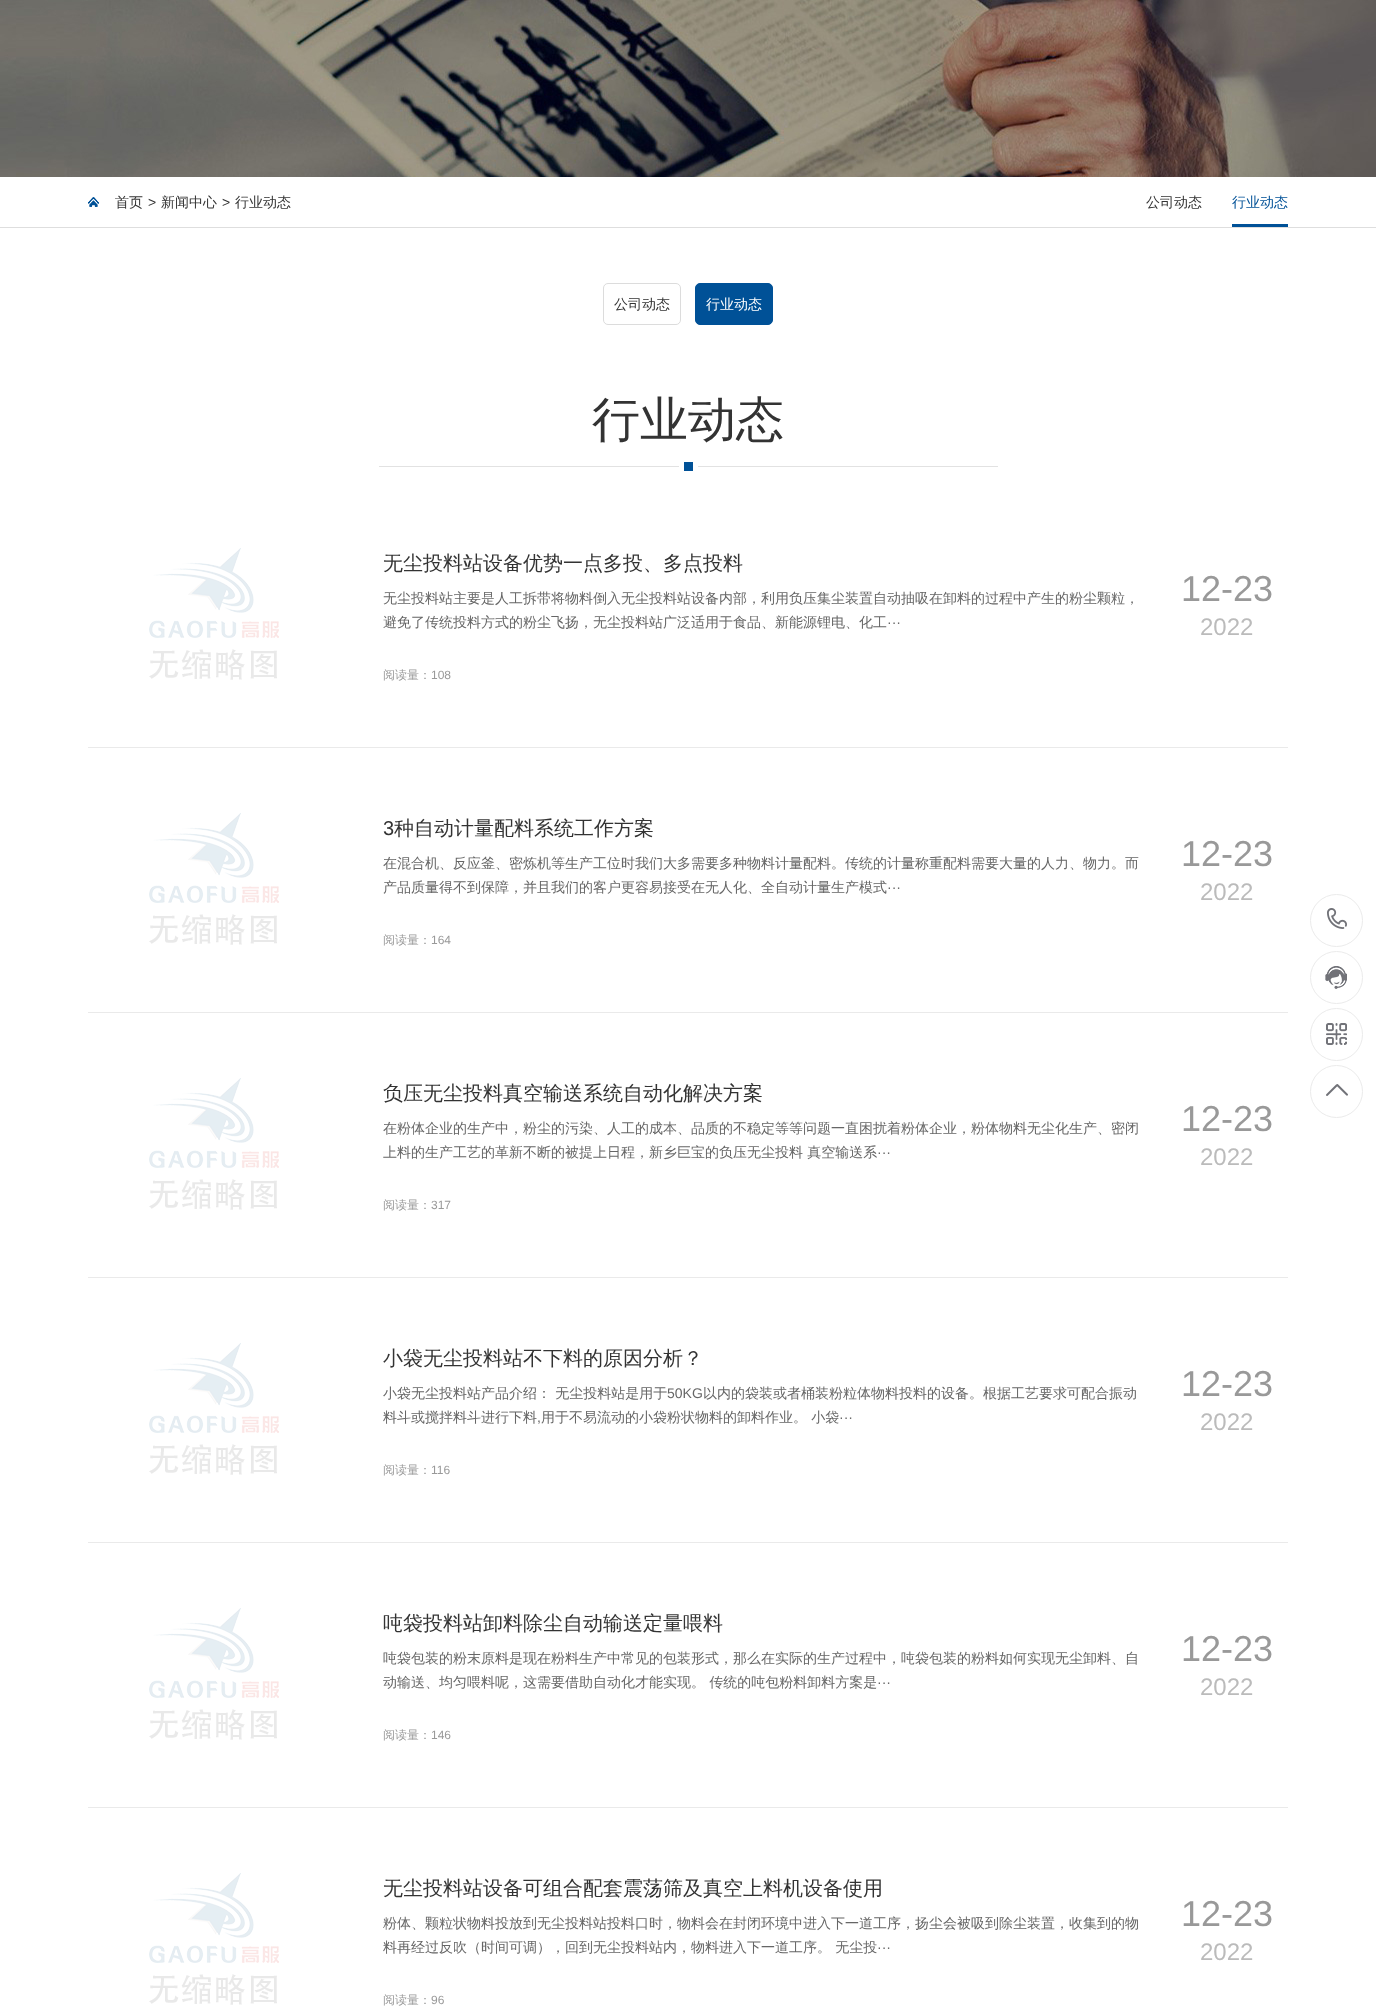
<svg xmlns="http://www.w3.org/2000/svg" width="1376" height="2010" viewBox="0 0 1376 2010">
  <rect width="100%" height="100%" fill="#fff"/>
  <image x="0" y="0" width="1376" height="177" href="img/1.png"/>
  <path d="M0 227h1376v1H0z" fill="#dedede"/>
  <image x="88" y="197" width="11" height="10" href="img/2.png"/>
  <path d="M1232 224h56v3H1232z" fill="#005197"/>
  <rect x="603.5" y="283.5" width="77" height="41" rx="4.5" fill="none" stroke="#dcdcdc"/>
  <rect x="695.5" y="283.5" width="77" height="41" rx="4.5" fill="#005197" stroke="#005197"/>
  <image x="379" y="462" width="619" height="9" href="img/3.png"/>
  <path d="M88 747h1200v1H88z" fill="#eaeaea"/>
  <image x="149" y="548" width="130" height="132" href="img/4.png"/>
  <path d="M88 1012h1200v1H88z" fill="#eaeaea"/>
  <image x="149" y="813" width="130" height="132" href="img/4.png"/>
  <path d="M88 1277h1200v1H88z" fill="#eaeaea"/>
  <image x="149" y="1078" width="130" height="132" href="img/4.png"/>
  <path d="M88 1542h1200v1H88z" fill="#eaeaea"/>
  <image x="149" y="1343" width="130" height="132" href="img/4.png"/>
  <path d="M88 1807h1200v1H88z" fill="#eaeaea"/>
  <image x="149" y="1608" width="130" height="132" href="img/4.png"/>
  <image x="149" y="1873" width="130" height="132" href="img/4.png"/>
  <circle cx="1336.5" cy="920.5" r="26" fill="none" stroke="#ebebeb"/>
  <image x="1327" y="908" width="20" height="21" href="img/5.png"/>
  <circle cx="1336.5" cy="977.5" r="26" fill="none" stroke="#ebebeb"/>
  <image x="1325" y="966" width="22" height="23" href="img/6.png"/>
  <circle cx="1336.5" cy="1034.5" r="26" fill="none" stroke="#ebebeb"/>
  <image x="1326" y="1023" width="21" height="22" href="img/7.png"/>
  <circle cx="1336.5" cy="1091.5" r="26" fill="none" stroke="#ebebeb"/>
  <image x="1326" y="1084" width="22" height="12" href="img/8.png"/>
  <text x="115" y="207" font-family="WenQuanYi Zen Hei" font-size="14" font-weight="500" fill="#333">首页</text>
  <text x="148" y="207" font-family="Liberation Sans" font-size="14" fill="#333">&gt;</text>
  <text x="161" y="207" font-family="WenQuanYi Zen Hei" font-size="14" font-weight="500" fill="#333">新闻中心</text>
  <text x="222" y="207" font-family="Liberation Sans" font-size="14" fill="#333">&gt;</text>
  <g font-family="WenQuanYi Zen Hei" font-size="14" font-weight="500" fill="#333">
    <text x="235" y="207">行业动态</text>
    <text x="1146" y="207">公司动态</text>
  </g>
  <text x="1232" y="207" font-family="WenQuanYi Zen Hei" font-size="14" font-weight="500" fill="#005197">行业动态</text>
  <text x="614" y="309" font-family="WenQuanYi Zen Hei" font-size="14" font-weight="500" fill="#333">公司动态</text>
  <text x="706" y="309" font-family="WenQuanYi Zen Hei" font-size="14" font-weight="500" fill="#fff">行业动态</text>
  <text x="592" y="436" font-family="WenQuanYi Zen Hei" font-size="48" font-weight="500" fill="#333">行业动态</text>
  <text x="383" y="570" font-family="WenQuanYi Zen Hei" font-size="20" font-weight="500" fill="#333">无尘投料站设备优势一点多投、多点投料</text>
  <g font-family="WenQuanYi Zen Hei" font-size="14" font-weight="500" fill="#666">
    <text x="383" y="603">无尘投料站主要是人工拆带将物料倒入无尘投料站设备内部，利用负压集尘装置自动抽吸在卸料的过程中产生的粉尘颗粒，</text>
    <text x="383" y="627">避免了传统投料方式的粉尘飞扬，无尘投料站广泛适用于食品、新能源锂电、化工</text>
  </g>
  <text x="887" y="627" font-family="Liberation Sans" font-size="14" fill="#666">···</text>
  <text x="383" y="679" font-family="WenQuanYi Zen Hei" font-size="12" font-weight="500" fill="#999">阅读量：</text>
  <text x="431" y="679" font-family="Liberation Sans" font-size="12" fill="#999">108</text>
  <text x="1181" y="601" font-family="Liberation Sans" font-size="36" fill="#999">12-23</text>
  <text x="1200" y="635" font-family="Liberation Sans" font-size="24" fill="#bbb">2022</text>
  <text x="383" y="835" font-family="Liberation Sans" font-size="20" fill="#333">3</text>
  <text x="394" y="835" font-family="WenQuanYi Zen Hei" font-size="20" font-weight="500" fill="#333">种自动计量配料系统工作方案</text>
  <g font-family="WenQuanYi Zen Hei" font-size="14" font-weight="500" fill="#666">
    <text x="383" y="868">在混合机、反应釜、密炼机等生产工位时我们大多需要多种物料计量配料。传统的计量称重配料需要大量的人力、物力。而</text>
    <text x="383" y="892">产品质量得不到保障，并且我们的客户更容易接受在无人化、全自动计量生产模式</text>
  </g>
  <text x="887" y="892" font-family="Liberation Sans" font-size="14" fill="#666">···</text>
  <text x="383" y="944" font-family="WenQuanYi Zen Hei" font-size="12" font-weight="500" fill="#999">阅读量：</text>
  <text x="431" y="944" font-family="Liberation Sans" font-size="12" fill="#999">164</text>
  <text x="1181" y="866" font-family="Liberation Sans" font-size="36" fill="#999">12-23</text>
  <text x="1200" y="900" font-family="Liberation Sans" font-size="24" fill="#bbb">2022</text>
  <text x="383" y="1100" font-family="WenQuanYi Zen Hei" font-size="20" font-weight="500" fill="#333">负压无尘投料真空输送系统自动化解决方案</text>
  <g font-family="WenQuanYi Zen Hei" font-size="14" font-weight="500" fill="#666">
    <text x="383" y="1133">在粉体企业的生产中，粉尘的污染、人工的成本、品质的不稳定等等问题一直困扰着粉体企业，粉体物料无尘化生产、密闭</text>
    <text x="383" y="1157">上料的生产工艺的革新不断的被提上日程，新乡巨宝的负压无尘投料 真空输送系</text>
  </g>
  <text x="877" y="1157" font-family="Liberation Sans" font-size="14" fill="#666">···</text>
  <text x="383" y="1209" font-family="WenQuanYi Zen Hei" font-size="12" font-weight="500" fill="#999">阅读量：</text>
  <text x="431" y="1209" font-family="Liberation Sans" font-size="12" fill="#999">317</text>
  <text x="1181" y="1131" font-family="Liberation Sans" font-size="36" fill="#999">12-23</text>
  <text x="1200" y="1165" font-family="Liberation Sans" font-size="24" fill="#bbb">2022</text>
  <text x="383" y="1365" font-family="WenQuanYi Zen Hei" font-size="20" font-weight="500" fill="#333">小袋无尘投料站不下料的原因分析？</text>
  <text x="383" y="1398" font-family="WenQuanYi Zen Hei" font-size="14" font-weight="500" fill="#666">小袋无尘投料站产品介绍： 无尘投料站是用于</text>
  <text x="667" y="1398" font-family="Liberation Sans" font-size="14" fill="#666">50KG</text>
  <g font-family="WenQuanYi Zen Hei" font-size="14" font-weight="500" fill="#666">
    <text x="703" y="1398">以内的袋装或者桶装粉粒体物料投料的设备。根据工艺要求可配合振动</text>
    <text x="383" y="1422">料斗或搅拌料斗进行下料</text>
    <text x="541" y="1422">用于不易流动的小袋粉状物料的卸料作业。 小袋</text>
  </g>
  <g font-family="Liberation Sans" font-size="14" fill="#666">
    <text x="839" y="1422">···</text>
    <text x="537" y="1422">,</text>
  </g>
  <text x="383" y="1474" font-family="WenQuanYi Zen Hei" font-size="12" font-weight="500" fill="#999">阅读量：</text>
  <text x="431" y="1474" font-family="Liberation Sans" font-size="12" fill="#999">116</text>
  <text x="1181" y="1396" font-family="Liberation Sans" font-size="36" fill="#999">12-23</text>
  <text x="1200" y="1430" font-family="Liberation Sans" font-size="24" fill="#bbb">2022</text>
  <text x="383" y="1630" font-family="WenQuanYi Zen Hei" font-size="20" font-weight="500" fill="#333">吨袋投料站卸料除尘自动输送定量喂料</text>
  <g font-family="WenQuanYi Zen Hei" font-size="14" font-weight="500" fill="#666">
    <text x="383" y="1663">吨袋包装的粉末原料是现在粉料生产中常见的包装形式，那么在实际的生产过程中，吨袋包装的粉料如何实现无尘卸料、自</text>
    <text x="383" y="1687">动输送、均匀喂料呢，这需要借助自动化才能实现。 传统的吨包粉料卸料方案是</text>
  </g>
  <text x="877" y="1687" font-family="Liberation Sans" font-size="14" fill="#666">···</text>
  <text x="383" y="1739" font-family="WenQuanYi Zen Hei" font-size="12" font-weight="500" fill="#999">阅读量：</text>
  <text x="431" y="1739" font-family="Liberation Sans" font-size="12" fill="#999">146</text>
  <text x="1181" y="1661" font-family="Liberation Sans" font-size="36" fill="#999">12-23</text>
  <text x="1200" y="1695" font-family="Liberation Sans" font-size="24" fill="#bbb">2022</text>
  <text x="383" y="1895" font-family="WenQuanYi Zen Hei" font-size="20" font-weight="500" fill="#333">无尘投料站设备可组合配套震荡筛及真空上料机设备使用</text>
  <g font-family="WenQuanYi Zen Hei" font-size="14" font-weight="500" fill="#666">
    <text x="383" y="1928">粉体、颗粒状物料投放到无尘投料站投料口时，物料会在封闭环境中进入下一道工序，扬尘会被吸到除尘装置，收集到的物</text>
    <text x="383" y="1952">料再经过反吹（时间可调），回到无尘投料站内，物料进入下一道工序。 无尘投</text>
  </g>
  <text x="877" y="1952" font-family="Liberation Sans" font-size="14" fill="#666">···</text>
  <text x="383" y="2004" font-family="WenQuanYi Zen Hei" font-size="12" font-weight="500" fill="#999">阅读量：</text>
  <text x="431" y="2004" font-family="Liberation Sans" font-size="12" fill="#999">96</text>
  <text x="1181" y="1926" font-family="Liberation Sans" font-size="36" fill="#999">12-23</text>
  <text x="1200" y="1960" font-family="Liberation Sans" font-size="24" fill="#bbb">2022</text>
</svg>
